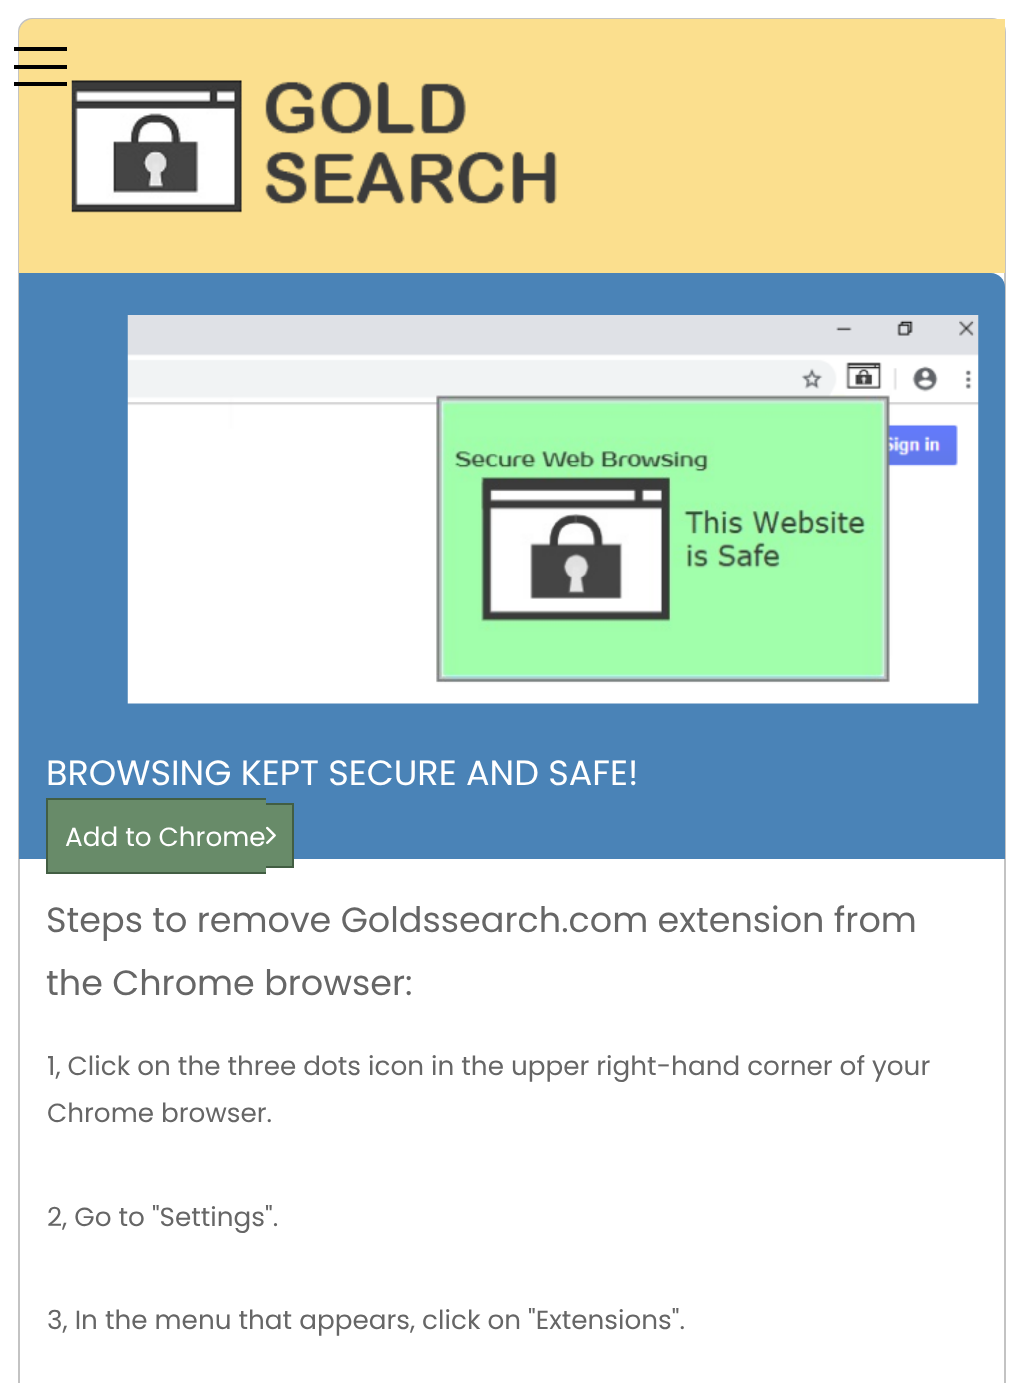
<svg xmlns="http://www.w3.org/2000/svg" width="1023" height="1383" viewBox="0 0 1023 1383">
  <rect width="100%" height="100%" fill="#fff"/>
  <rect x="19" y="19" width="986" height="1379" rx="13" fill="none" stroke="#c3c3c3" stroke-width="2"/>
  <path d="M33 19H1005V273H19V33C19 25.5 25.5 19 33 19Z" fill="#fbdf8e"/>
  <image x="71" y="80" width="486" height="133" href="img/1.png"/>
  <path d="M19 273H991C998.5 273 1005 279.5 1005 287V859H19Z" fill="#4a83b7"/>
  <image x="127" y="315" width="852" height="389" href="img/2.png"/>
  <path d="M48 800h218v72H48z" fill="#688b69"/>
  <path d="M46 798h220v2H46z" fill="#425e43"/>
  <path d="M46 872h220v2H46z" fill="#425e43"/>
  <path d="M46 798h2v75H46z" fill="#425e43"/>
  <path d="M266 805h26v61H266z" fill="#688b69"/>
  <path d="M266 803h28v2H266z" fill="#425e43"/>
  <path d="M292 803h2v65H292z" fill="#425e43"/>
  <path d="M266 866h28v2H266z" fill="#425e43"/>
  <image x="266" y="826" width="10" height="18" href="img/3.png"/>
  <path d="M14 65h53v4H14z" fill="#000"/>
  <path d="M14 47h53v4H14z" fill="#000"/>
  <path d="M14 82h53v4H14z" fill="#000"/>
  <text x="46" y="785" font-family="Poppins" font-size="35" fill="#fff">BROWSING KEPT SECURE AND SAFE!</text>
  <text x="65" y="846" font-family="Poppins" font-size="26.25" fill="#fff">Add to Chrome</text>
  <g font-family="Poppins" font-size="35" fill="#666">
    <text x="46" y="932">Steps to remove Goldssearch.com extension from</text>
    <text x="46" y="995">the Chrome browser:</text>
  </g>
  <g font-family="Poppins" font-size="26.25" fill="#666">
    <text x="47" y="1075">1, Click on the three dots icon in the upper right-hand corner of your</text>
    <text x="47" y="1122">Chrome browser.</text>
    <text x="47" y="1226">2, Go to "Settings".</text>
    <text x="47" y="1329">3, In the menu that appears, click on "Extensions".</text>
  </g>
</svg>
